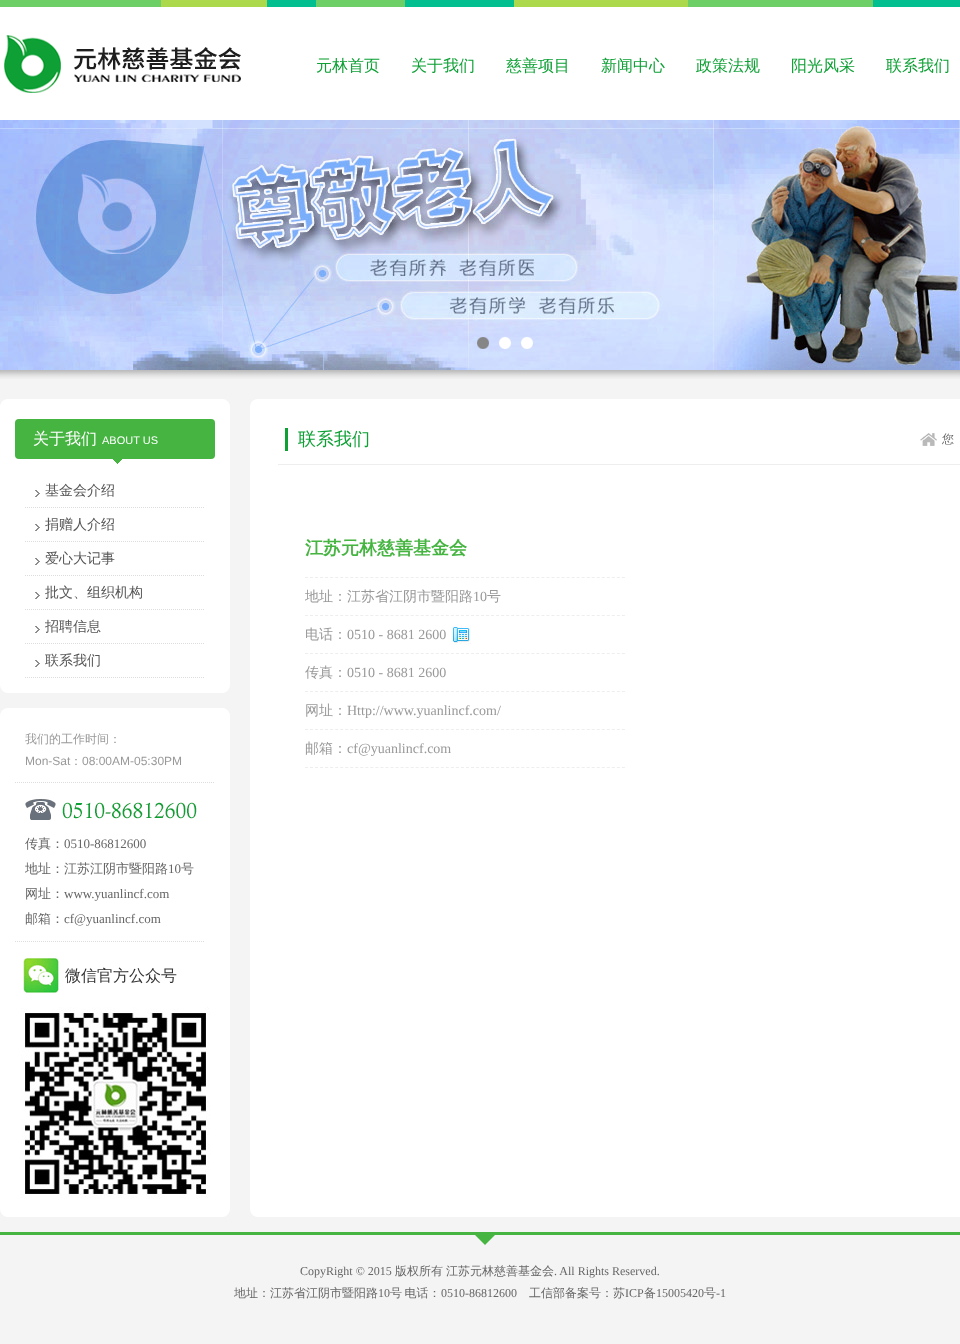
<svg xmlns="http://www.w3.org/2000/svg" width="960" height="1344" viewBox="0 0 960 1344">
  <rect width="100%" height="100%" fill="#f4f4f4"/>
  <path d="M0 7h960v113H0z" fill="#fff"/>
  <image x="0" y="0" width="960" height="7" href="img/1.png"/>
  <image x="4" y="35" width="237" height="58" href="img/2.png"/>
  <image x="0" y="120" width="960" height="250" href="img/3.png"/>
  <image x="477" y="337" width="12" height="12" href="img/4.png"/>
  <image x="499" y="337" width="12" height="12" href="img/5.png"/>
  <image x="521" y="337" width="12" height="12" href="img/6.png"/>
  <image x="0" y="370" width="960" height="9" href="img/7.png"/>
  <rect y="399" width="230" height="294" rx="8" fill="#fff"/>
  <rect x="15" y="419" width="200" height="40" rx="4" fill="#45b440"/>
  <image x="113" y="459" width="9" height="5" href="img/8.png"/>
  <path d="M25 507.5H205" fill="none" stroke="#ddd" stroke-dasharray="1 1"/>
  <image x="35" y="490" width="5" height="7" href="img/9.png"/>
  <path d="M25 541.5H205" fill="none" stroke="#ddd" stroke-dasharray="1 1"/>
  <image x="35" y="524" width="5" height="7" href="img/9.png"/>
  <path d="M25 575.5H205" fill="none" stroke="#ddd" stroke-dasharray="1 1"/>
  <image x="35" y="558" width="5" height="7" href="img/9.png"/>
  <path d="M25 609.5H205" fill="none" stroke="#ddd" stroke-dasharray="1 1"/>
  <image x="35" y="592" width="5" height="7" href="img/9.png"/>
  <path d="M25 643.5H205" fill="none" stroke="#ddd" stroke-dasharray="1 1"/>
  <image x="35" y="626" width="5" height="7" href="img/9.png"/>
  <path d="M25 677.5H205" fill="none" stroke="#ddd" stroke-dasharray="1 1"/>
  <image x="35" y="660" width="5" height="7" href="img/9.png"/>
  <rect y="708" width="230" height="509" rx="8" fill="#fff"/>
  <path d="M15 782.5H215" fill="none" stroke="#ddd" stroke-dasharray="1 1"/>
  <image x="25" y="799" width="31" height="21" href="img/10.png"/>
  <image x="62" y="802" width="135" height="17" href="img/11.png"/>
  <path d="M15 941.5H204" fill="none" stroke="#ddd" stroke-dasharray="1 1"/>
  <image x="23" y="958" width="36" height="35" href="img/12.png"/>
  <image x="21" y="1007" width="189" height="192" href="img/13.png"/>
  <rect x="250" y="399" width="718" height="818" rx="8" fill="#fff"/>
  <path d="M278 464h682v1H278z" fill="#eee"/>
  <path d="M285 428h3v23H285z" fill="#0ea035"/>
  <image x="920" y="433" width="17" height="13" href="img/14.png"/>
  <path d="M305 577.5H625" fill="none" stroke="#eee" stroke-dasharray="3 2.03"/>
  <path d="M305 615.5H625" fill="none" stroke="#eee" stroke-dasharray="3 2.03"/>
  <path d="M305 653.5H625" fill="none" stroke="#eee" stroke-dasharray="3 2.03"/>
  <image x="451" y="625" width="20" height="20" href="img/15.png"/>
  <path d="M305 691.5H625" fill="none" stroke="#eee" stroke-dasharray="3 2.03"/>
  <path d="M305 729.5H625" fill="none" stroke="#eee" stroke-dasharray="3 2.03"/>
  <path d="M305 767.5H625" fill="none" stroke="#eee" stroke-dasharray="3 2.03"/>
  <path d="M0 1232h960v3H0z" fill="#45b440"/>
  <image x="475" y="1235" width="20" height="10" href="img/16.png"/>
  <g font-family="WenQuanYi Zen Hei" font-size="16" font-weight="500" fill="#0ea035">
    <text x="316" y="71">元林首页</text>
    <text x="411" y="71">关于我们</text>
    <text x="506" y="71">慈善项目</text>
    <text x="601" y="71">新闻中心</text>
    <text x="696" y="71">政策法规</text>
    <text x="791" y="71">阳光风采</text>
    <text x="886" y="71">联系我们</text>
  </g>
  <text x="33" y="444" font-family="WenQuanYi Zen Hei" font-size="16" font-weight="500" fill="#fff">关于我们</text>
  <text x="102" y="444" font-family="Liberation Sans" font-size="11" fill="#fff">ABOUT US</text>
  <g font-family="WenQuanYi Zen Hei" font-size="14" font-weight="500" fill="#555">
    <text x="45" y="495">基金会介绍</text>
    <text x="45" y="529">捐赠人介绍</text>
    <text x="45" y="563">爱心大记事</text>
    <text x="45" y="597">批文、组织机构</text>
    <text x="45" y="631">招聘信息</text>
    <text x="45" y="665">联系我们</text>
  </g>
  <text x="25" y="743" font-family="WenQuanYi Zen Hei" font-size="12" font-weight="500" fill="#999">我们的工作时间：</text>
  <text x="25" y="765" font-family="Liberation Sans" font-size="12" fill="#999">Mon-Sat</text>
  <text x="70" y="765" font-family="WenQuanYi Zen Hei" font-size="12" font-weight="500" fill="#999">：</text>
  <text x="82" y="765" font-family="Liberation Sans" font-size="12" fill="#999">08:00AM-05:30PM</text>
  <text x="25" y="848" font-family="WenQuanYi Zen Hei" font-size="13" font-weight="500" fill="#666">传真：</text>
  <text x="64" y="848" font-family="Liberation Serif" font-size="13" fill="#666">0510-86812600</text>
  <text x="25" y="873" font-family="WenQuanYi Zen Hei" font-size="13" font-weight="500" fill="#666">地址：江苏江阴市暨阳路</text>
  <text x="168" y="873" font-family="Liberation Serif" font-size="13" fill="#666">10</text>
  <g font-family="WenQuanYi Zen Hei" font-size="13" font-weight="500" fill="#666">
    <text x="181" y="873">号</text>
    <text x="25" y="898">网址：</text>
  </g>
  <text x="64" y="898" font-family="Liberation Serif" font-size="13" fill="#666">www.yuanlincf.com</text>
  <text x="25" y="923" font-family="WenQuanYi Zen Hei" font-size="13" font-weight="500" fill="#666">邮箱：</text>
  <text x="64" y="923" font-family="Liberation Serif" font-size="13" fill="#666">cf@yuanlincf.com</text>
  <text x="65" y="981" font-family="WenQuanYi Zen Hei" font-size="16" font-weight="500" fill="#333">微信官方公众号</text>
  <text x="298" y="445" font-family="WenQuanYi Zen Hei" font-size="18" font-weight="500" fill="#0ea035">联系我们</text>
  <text x="942" y="443" font-family="WenQuanYi Zen Hei" font-size="12" font-weight="500" fill="#666">您</text>
  <text x="305" y="554" font-family="WenQuanYi Zen Hei" font-size="18" font-weight="bold" fill="#45b440">江苏元林慈善基金会</text>
  <text x="305" y="601" font-family="WenQuanYi Zen Hei" font-size="14" font-weight="500" fill="#999">地址：江苏省江阴市暨阳路</text>
  <text x="473" y="601" font-family="Liberation Serif" font-size="14" fill="#999">10</text>
  <g font-family="WenQuanYi Zen Hei" font-size="14" font-weight="500" fill="#999">
    <text x="487" y="601">号</text>
    <text x="305" y="639">电话：</text>
  </g>
  <text x="347" y="639" font-family="Liberation Serif" font-size="14" fill="#999">0510 - 8681 2600</text>
  <text x="305" y="677" font-family="WenQuanYi Zen Hei" font-size="14" font-weight="500" fill="#999">传真：</text>
  <text x="347" y="677" font-family="Liberation Serif" font-size="14" fill="#999">0510 - 8681 2600</text>
  <text x="305" y="715" font-family="WenQuanYi Zen Hei" font-size="14" font-weight="500" fill="#999">网址：</text>
  <text x="347" y="715" font-family="Liberation Serif" font-size="14" fill="#999">Http://www.yuanlincf.com/</text>
  <text x="305" y="753" font-family="WenQuanYi Zen Hei" font-size="14" font-weight="500" fill="#999">邮箱：</text>
  <text x="347" y="753" font-family="Liberation Serif" font-size="14" fill="#999">cf@yuanlincf.com</text>
  <text x="300" y="1275" font-family="Liberation Serif" font-size="12" fill="#666">CopyRight © 2015</text>
  <g font-family="WenQuanYi Zen Hei" font-size="12" font-weight="500" fill="#666">
    <text x="395" y="1275">版权所有</text>
    <text x="446" y="1275">江苏元林慈善基金会</text>
  </g>
  <text x="554" y="1275" font-family="Liberation Serif" font-size="12" fill="#666">. All Rights Reserved.</text>
  <text x="234" y="1297" font-family="WenQuanYi Zen Hei" font-size="12" font-weight="500" fill="#666">地址：江苏省江阴市暨阳路</text>
  <text x="378" y="1297" font-family="Liberation Serif" font-size="12" fill="#666">10</text>
  <text x="390" y="1297" word-spacing="-1" font-family="WenQuanYi Zen Hei" font-size="12" font-weight="500" fill="#666">号 电话：</text>
  <text x="441" y="1297" font-family="Liberation Serif" font-size="12" fill="#666">0510-86812600</text>
  <text x="529" y="1297" font-family="WenQuanYi Zen Hei" font-size="12" font-weight="500" fill="#666">工信部备案号：苏</text>
  <text x="625" y="1297" font-family="Liberation Serif" font-size="12" fill="#666">ICP</text>
  <text x="644" y="1297" font-family="WenQuanYi Zen Hei" font-size="12" font-weight="500" fill="#666">备</text>
  <text x="656" y="1297" font-family="Liberation Serif" font-size="12" fill="#666">15005420</text>
  <text x="704" y="1297" font-family="WenQuanYi Zen Hei" font-size="12" font-weight="500" fill="#666">号</text>
  <text x="716" y="1297" font-family="Liberation Serif" font-size="12" fill="#666">-1</text>
</svg>
